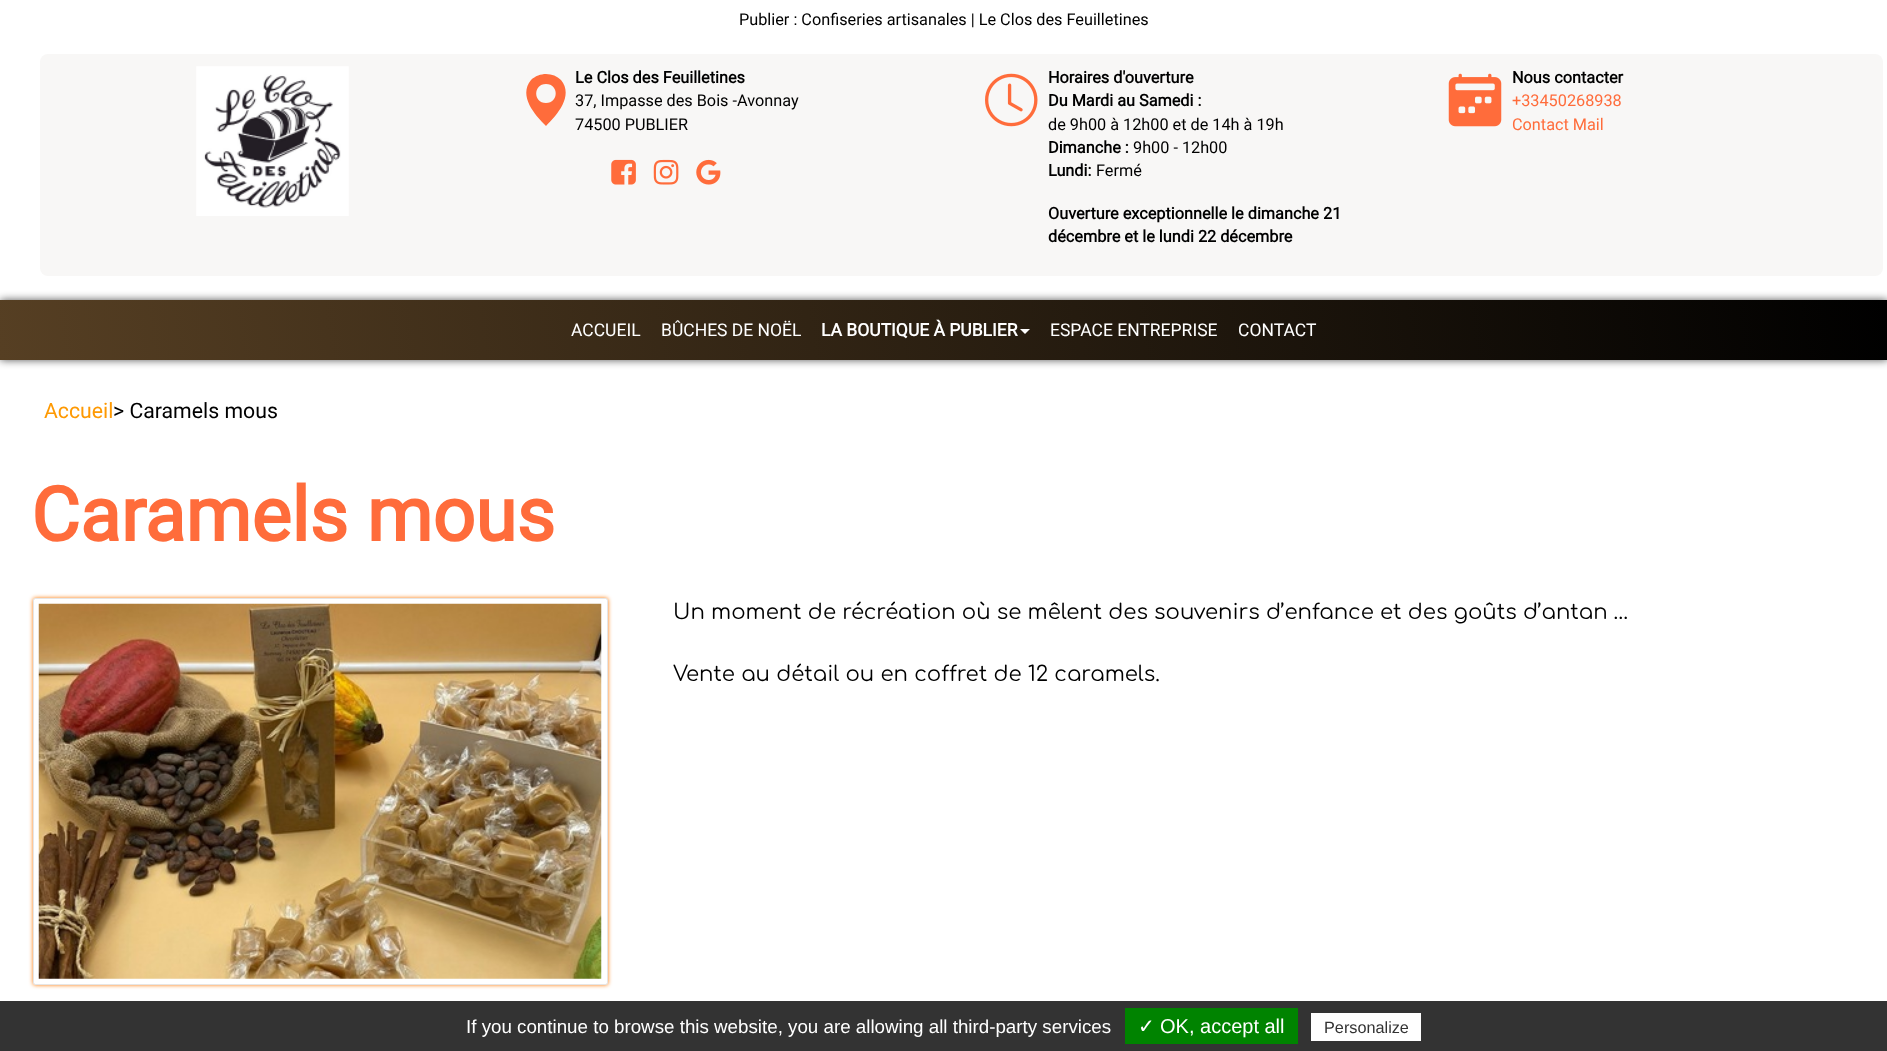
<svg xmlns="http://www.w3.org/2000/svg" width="1887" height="1051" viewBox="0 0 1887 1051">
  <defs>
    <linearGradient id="g1" gradientUnits="userSpaceOnUse" x1="1873" y1="199" x2="14" y2="461"><stop offset="0" stop-color="#000"/><stop offset="1" stop-color="#563f23"/></linearGradient>
    <clipPath id="clip1"><path d="M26 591H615V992H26ZM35.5 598H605.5C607 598 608 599 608 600.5V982.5C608 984 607 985 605.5 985H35.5C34 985 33 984 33 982.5V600.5C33 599 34 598 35.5 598Z" clip-rule="evenodd"/></clipPath>
  </defs>
  <rect width="100%" height="100%" fill="#fff"/>
  <rect x="40" y="54" width="1843" height="222" rx="8" fill="#f8f7f6"/>
  <image x="196" y="66" width="153" height="150" href="img/1.png"/>
  <path d="M546 126C557 115 574 96 561 80C557 76 552 74 546 74C541 74 535 76 531 80C518 96 535 115 546 126ZM546 103C533 103 533 84 546 84C559 84 559 103 546 103Z" fill="#ff6c3b"/>
  <image x="611" y="159" width="25" height="26" href="img/2.png"/>
  <image x="653" y="159" width="26" height="26" href="img/3.png"/>
  <image x="696" y="159" width="25" height="26" href="img/4.png"/>
  <image x="985" y="73" width="53" height="54" href="img/5.png"/>
  <image x="1448" y="73" width="54" height="54" href="img/6.png"/>
  <path d="M0 300h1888v60H0z" fill="#000000ab" filter="blur(4px)"/>
  <path d="M0 300h1887v60H0z" fill="url(#g1)"/>
  <path d="M1020 329H1030L1025 334Z" fill="#fff"/>
  <g clip-path="url(#clip1)">
    <rect x="33" y="598" width="575" height="387" rx="2.5" fill="#fe7802" filter="blur(2px)"/>
  </g>
  <rect x="33.5" y="598.5" width="574" height="386" rx="2" fill="none" stroke="#0000001a"/>
  <image x="38" y="603" width="564" height="376" href="img/7.png"/>
  <path d="M0 1001h1887v50H0z" fill="#333"/>
  <path d="M1125 1008h173v36H1125z" fill="#008300"/>
  <path d="M1311 1013h110v28H1311z" fill="#fff"/>
  <text x="739" y="25" font-family="Roboto" font-size="16.25" fill="#000">Publier : Confiseries artisanales | Le Clos des Feuilletines</text>
  <text x="575" y="83" font-family="Roboto" font-size="16.25" font-weight="bold" fill="#000">Le Clos des Feuilletines</text>
  <g font-family="Roboto" font-size="16.25" fill="#000">
    <text x="575" y="106">37, Impasse des Bois -Avonnay</text>
    <text x="575" y="130">74500 PUBLIER</text>
  </g>
  <g font-family="Roboto" font-size="16.25" font-weight="bold" fill="#000">
    <text x="1048" y="83">Horaires d'ouverture</text>
    <text x="1048" y="106">Du Mardi au Samedi :</text>
  </g>
  <text x="1048" y="130" font-family="Roboto" font-size="16.25" fill="#000">de 9h00 à 12h00 et de 14h à 19h</text>
  <text x="1048" y="153" font-family="Roboto" font-size="16.25" font-weight="bold" fill="#000">Dimanche :</text>
  <text x="1133" y="153" font-family="Roboto" font-size="16.25" fill="#000">9h00 - 12h00</text>
  <text x="1048" y="176" font-family="Roboto" font-size="16.25" font-weight="bold" fill="#000">Lundi:</text>
  <text x="1096" y="176" font-family="Roboto" font-size="16.25" fill="#000">Fermé</text>
  <g font-family="Roboto" font-size="16.25" font-weight="bold" fill="#000">
    <text x="1048" y="219">Ouverture exceptionnelle le dimanche 21</text>
    <text x="1048" y="242">décembre et le lundi 22 décembre</text>
    <text x="1512" y="83">Nous contacter</text>
  </g>
  <g font-family="Roboto" font-size="16.25" fill="#ff6c3b">
    <text x="1512" y="106">+33450268938</text>
    <text x="1512" y="130">Contact Mail</text>
  </g>
  <g font-family="Roboto" font-size="17.5" fill="#fff">
    <text x="571" y="336">ACCUEIL</text>
    <text x="661" y="336">BÛCHES DE NOËL</text>
  </g>
  <text x="821" y="336" font-family="Roboto" font-size="17.5" font-weight="bold" fill="#fff">LA BOUTIQUE À PUBLIER</text>
  <g font-family="Roboto" font-size="17.5" fill="#fff">
    <text x="1050" y="336">ESPACE ENTREPRISE</text>
    <text x="1238" y="336">CONTACT</text>
  </g>
  <text x="44" y="418" font-family="Roboto" font-size="21.25" fill="#fe9902">Accueil</text>
  <text x="113" y="418" font-family="Roboto" font-size="21.25" fill="#000">&gt; Caramels mous</text>
  <text x="31" y="541" font-family="Roboto" font-size="75" font-weight="bold" fill="#ff6c3b">Caramels mous</text>
  <g font-family="Comfortaa" font-size="21.25" fill="#000">
    <text x="673" y="619">Un moment de récréation où se mêlent des souvenirs d’enfance et des goûts d’antan …</text>
    <text x="673" y="681">Vente au détail ou en coffret de 12 caramels.</text>
  </g>
  <text x="466" y="1033" font-family="Liberation Sans" font-size="18.75" fill="#fff">If you continue to browse this website, you are allowing all third-party services</text>
  <text x="1138" y="1033" font-family="DejaVu Sans" font-size="20" fill="#fff">✓</text>
  <text x="1160" y="1033" font-family="Liberation Sans" font-size="20" fill="#fff">OK, accept all</text>
  <text x="1324" y="1033" font-family="Liberation Sans" font-size="16.25" fill="#333">Personalize</text>
</svg>
